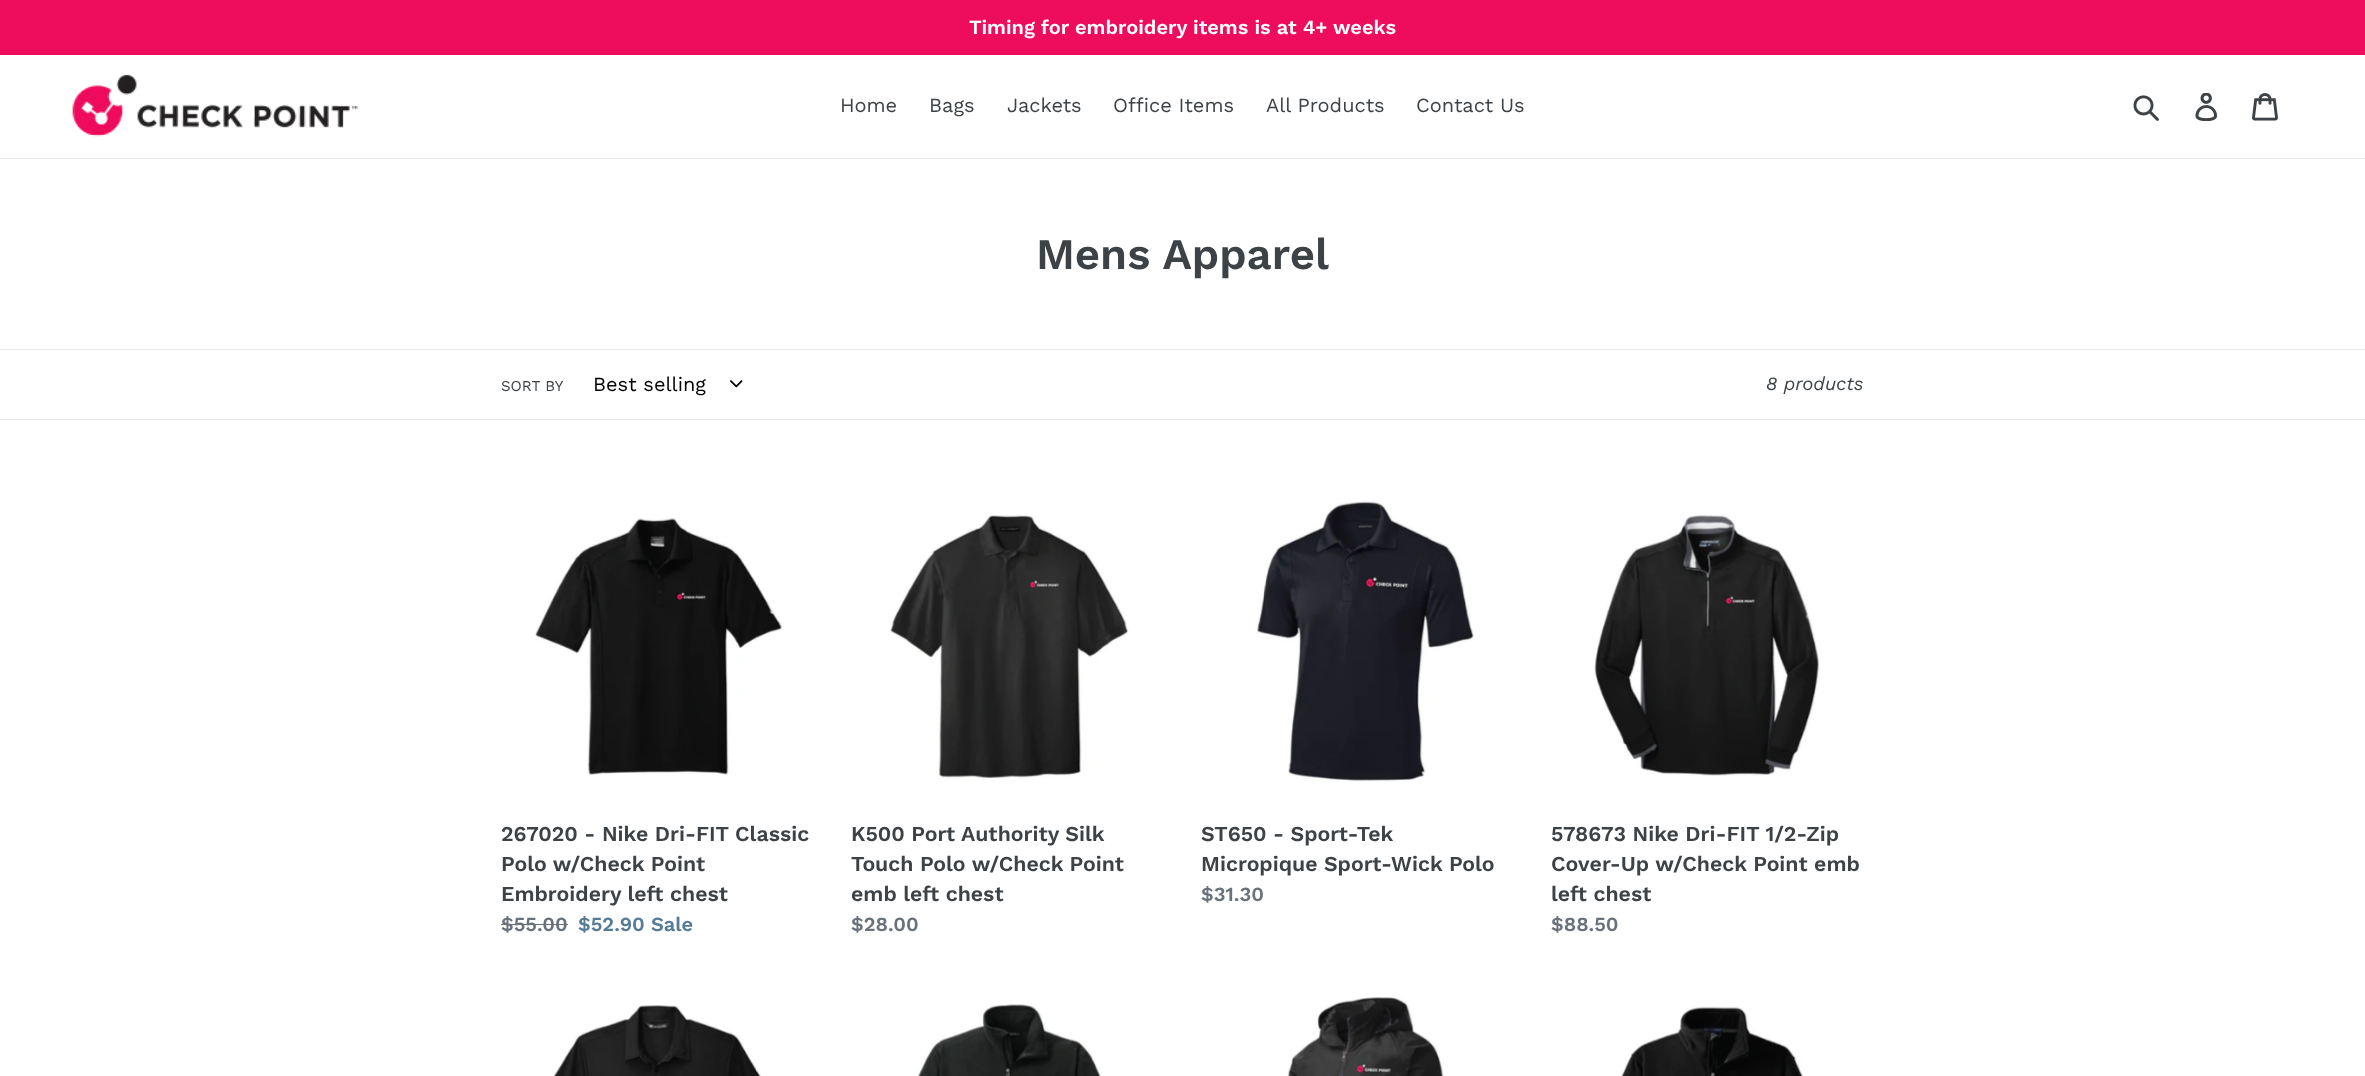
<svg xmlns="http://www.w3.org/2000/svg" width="2365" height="1076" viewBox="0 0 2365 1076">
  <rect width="100%" height="100%" fill="#fff"/>
  <path d="M0 0h2365v55H0z" fill="#ee0c5d"/>
  <path d="M0 158h2365v1H0z" fill="#e8e9eb"/>
  <image x="72" y="74" width="287" height="63" href="img/1.png"/>
  <image x="2133" y="95" width="26" height="26" href="img/2.png"/>
  <image x="2195" y="93" width="23" height="28" href="img/3.png"/>
  <image x="2252" y="93" width="26" height="28" href="img/4.png"/>
  <path d="M0 349h2365v1H0z" fill="#e8e9eb"/>
  <path d="M0 419h2365v1H0z" fill="#e8e9eb"/>
  <image x="730" y="380" width="13" height="8" href="img/5.png"/>
  <image x="535" y="518" width="248" height="257" href="img/6.png"/>
  <path d="M501 924h67v1H501z" fill="#69727b"/>
  <image x="890" y="515" width="239" height="265" href="img/7.png"/>
  <image x="1256" y="500" width="218" height="281" href="img/8.png"/>
  <image x="1594" y="514" width="226" height="262" href="img/9.png"/>
  <image x="553" y="1005" width="208" height="71" href="img/10.png"/>
  <image x="917" y="1004" width="184" height="72" href="img/11.png"/>
  <image x="1287" y="997" width="157" height="79" href="img/12.png"/>
  <image x="1621" y="1006" width="183" height="70" href="img/13.png"/>
  <text x="969" y="34" font-family="Work Sans" font-size="20" font-weight="600" fill="#fff">Timing for embroidery items is at 4+ weeks</text>
  <g font-family="Work Sans" font-size="20" fill="#3d4246">
    <text x="840" y="112">Home</text>
    <text x="929" y="112">Bags</text>
    <text x="1007" y="112">Jackets</text>
    <text x="1113" y="112">Office Items</text>
    <text x="1266" y="112">All Products</text>
    <text x="1416" y="112">Contact Us</text>
  </g>
  <text x="1036" y="269" font-family="Work Sans" font-size="43.75" font-weight="600" fill="#3d4246">Mens Apparel</text>
  <text x="501" y="391" font-family="Work Sans" font-size="15" fill="#3d4246">SORT BY</text>
  <text x="593" y="391" font-family="Work Sans" font-size="20" fill="#000">Best selling</text>
  <text x="1766" y="390" font-family="Work Sans" font-size="18.75" font-style="italic" fill="#3d4246">8 products</text>
  <g font-family="Work Sans" font-size="21.25" font-weight="600" fill="#3d4246">
    <text x="501" y="841">267020 - Nike Dri-FIT Classic</text>
    <text x="501" y="871">Polo w/Check Point</text>
    <text x="501" y="901">Embroidery left chest</text>
  </g>
  <text x="501" y="931" font-family="Work Sans" font-size="20" font-weight="600" fill="#69727b">$55.00</text>
  <text x="578" y="931" font-family="Work Sans" font-size="20" font-weight="600" fill="#557b97">$52.90 Sale</text>
  <g font-family="Work Sans" font-size="21.25" font-weight="600" fill="#3d4246">
    <text x="851" y="841">K500 Port Authority Silk</text>
    <text x="851" y="871">Touch Polo w/Check Point</text>
    <text x="851" y="901">emb left chest</text>
  </g>
  <text x="851" y="931" font-family="Work Sans" font-size="20" font-weight="600" fill="#69727b">$28.00</text>
  <g font-family="Work Sans" font-size="21.25" font-weight="600" fill="#3d4246">
    <text x="1201" y="841">ST650 - Sport-Tek</text>
    <text x="1201" y="871">Micropique Sport-Wick Polo</text>
  </g>
  <text x="1201" y="901" font-family="Work Sans" font-size="20" font-weight="600" fill="#69727b">$31.30</text>
  <g font-family="Work Sans" font-size="21.25" font-weight="600" fill="#3d4246">
    <text x="1551" y="841">578673 Nike Dri-FIT 1/2-Zip</text>
    <text x="1551" y="871">Cover-Up w/Check Point emb</text>
    <text x="1551" y="901">left chest</text>
  </g>
  <text x="1551" y="931" font-family="Work Sans" font-size="20" font-weight="600" fill="#69727b">$88.50</text>
</svg>
